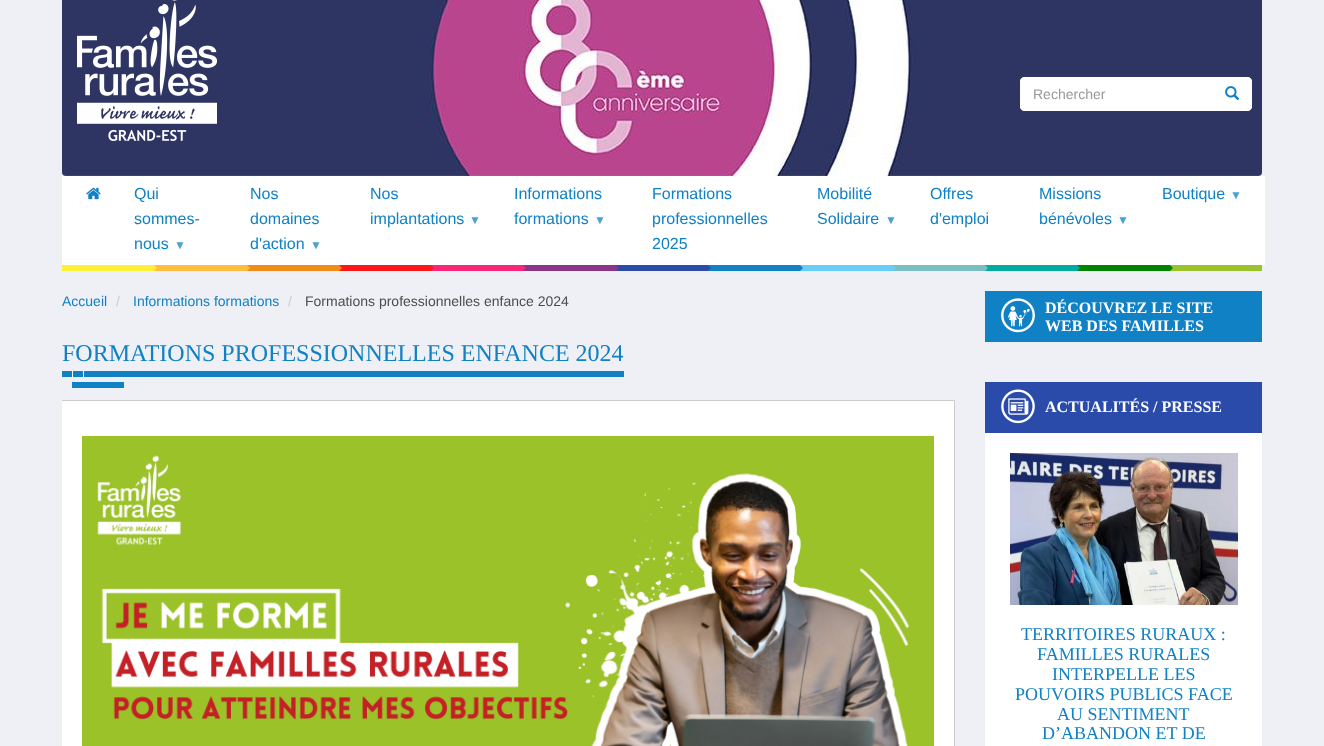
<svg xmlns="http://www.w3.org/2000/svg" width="1324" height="746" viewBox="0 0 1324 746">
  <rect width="100%" height="100%" fill="#eef0f5"/>
  <image x="62" y="0" width="1200" height="176" href="img/1.png"/>
  <image x="77" y="0" width="140" height="141" href="img/2.png"/>
  <path d="M1024 77.5H1212.5V110.5H1024C1022 110.5 1020.5 109 1020.5 107V81C1020.5 79 1022 77.5 1024 77.5Z" fill="#fff" stroke="#fff"/>
  <path d="M1212.5 77.5H1248C1250 77.5 1251.5 79 1251.5 81V107C1251.5 109 1250 110.5 1248 110.5H1212.5Z" fill="#fff" stroke="#fff"/>
  <image x="1225" y="86" width="15" height="14" href="img/3.png"/>
  <path d="M62 176h1203v89H62z" fill="#fff"/>
  <image x="86" y="187" width="15" height="13" href="img/4.png"/>
  <path d="M62 265h92v6H62z" fill="#fdf036"/>
  <path d="M154 265h93v6H154z" fill="#ffbc3f"/>
  <path d="M154 271V265L157 268Z" fill="#fdf036"/>
  <path d="M247 265h92v6H247z" fill="#f18c18"/>
  <path d="M247 271V265L250 268Z" fill="#ffbc3f"/>
  <path d="M339 265h92v6H339z" fill="#fc1819"/>
  <path d="M339 271V265L342 268Z" fill="#f18c18"/>
  <path d="M431 265h92v6H431z" fill="#f92675"/>
  <path d="M431 271V265L434 268Z" fill="#fc1819"/>
  <path d="M523 265h93v6H523z" fill="#893688"/>
  <path d="M523 271V265L526 268Z" fill="#f92675"/>
  <path d="M616 265h92v6H616z" fill="#2a4baa"/>
  <path d="M616 271V265L619 268Z" fill="#893688"/>
  <path d="M708 265h92v6H708z" fill="#1081c5"/>
  <path d="M708 271V265L711 268Z" fill="#2a4baa"/>
  <path d="M800 265h93v6H800z" fill="#68cef6"/>
  <path d="M800 271V265L803 268Z" fill="#1081c5"/>
  <path d="M893 265h92v6H893z" fill="#78bec3"/>
  <path d="M893 271V265L896 268Z" fill="#68cef6"/>
  <path d="M985 265h92v6H985z" fill="#01ab9e"/>
  <path d="M985 271V265L988 268Z" fill="#78bec3"/>
  <path d="M1077 265h93v6H1077z" fill="#028400"/>
  <path d="M1077 271V265L1080 268Z" fill="#01ab9e"/>
  <path d="M1170 265h92v6H1170z" fill="#9bc229"/>
  <path d="M1170 271V265L1173 268Z" fill="#028400"/>
  <path d="M62 371h562v6H62z" fill="#1081c5"/>
  <path d="M72 382h52v6H72z" fill="#1081c5"/>
  <path d="M83 371h1v6H83z" fill="#fff"/>
  <path d="M72 371h1v6H72z" fill="#fff"/>
  <path d="M62 401h892v345H62z" fill="#fff"/>
  <path d="M62 400h893v1H62z" fill="#cdcdcd"/>
  <path d="M954 400h1v346H954z" fill="#cdcdcd"/>
  <image x="82" y="436" width="852" height="310" href="img/5.png"/>
  <path d="M985 291h277v51H985z" fill="#1081c5"/>
  <image x="1001" y="298" width="34" height="35" href="img/6.png"/>
  <path d="M985 382h277v51H985z" fill="#2a4baa"/>
  <image x="1001" y="389" width="34" height="35" href="img/7.png"/>
  <path d="M985 433h277v313H985z" fill="#fff"/>
  <image x="1010" y="453" width="228" height="152" href="img/8.png"/>
  <text x="1033" y="99" font-family="Liberation Sans" font-size="14" fill="#999">Rechercher</text>
  <g font-family="Liberation Sans" font-size="16" fill="#1081c5">
    <text x="134" y="199">Qui</text>
    <text x="134" y="224">sommes-</text>
    <text x="134" y="249">nous</text>
  </g>
  <text x="174" y="249" font-family="Liberation Sans" font-size="12" fill="#4ca1d4">▼</text>
  <g font-family="Liberation Sans" font-size="16" fill="#1081c5">
    <text x="250" y="199">Nos</text>
    <text x="250" y="224">domaines</text>
    <text x="250" y="249">d'action</text>
  </g>
  <text x="310" y="249" font-family="Liberation Sans" font-size="12" fill="#4ca1d4">▼</text>
  <g font-family="Liberation Sans" font-size="16" fill="#1081c5">
    <text x="370" y="199">Nos</text>
    <text x="370" y="224">implantations</text>
  </g>
  <text x="469" y="224" font-family="Liberation Sans" font-size="12" fill="#4ca1d4">▼</text>
  <g font-family="Liberation Sans" font-size="16" fill="#1081c5">
    <text x="514" y="199">Informations</text>
    <text x="514" y="224">formations</text>
  </g>
  <text x="594" y="224" font-family="Liberation Sans" font-size="12" fill="#4ca1d4">▼</text>
  <g font-family="Liberation Sans" font-size="16" fill="#1081c5">
    <text x="652" y="199">Formations</text>
    <text x="652" y="224">professionnelles</text>
    <text x="652" y="249">2025</text>
    <text x="817" y="199">Mobilité</text>
    <text x="817" y="224">Solidaire</text>
  </g>
  <text x="885" y="224" font-family="Liberation Sans" font-size="12" fill="#4ca1d4">▼</text>
  <g font-family="Liberation Sans" font-size="16" fill="#1081c5">
    <text x="930" y="199">Offres</text>
    <text x="930" y="224">d'emploi</text>
    <text x="1039" y="199">Missions</text>
    <text x="1039" y="224">bénévoles</text>
  </g>
  <text x="1117" y="224" font-family="Liberation Sans" font-size="12" fill="#4ca1d4">▼</text>
  <text x="1162" y="199" font-family="Liberation Sans" font-size="16" fill="#1081c5">Boutique</text>
  <text x="1230" y="199" font-family="Liberation Sans" font-size="12" fill="#4ca1d4">▼</text>
  <text x="62" y="306" font-family="Liberation Sans" font-size="14" fill="#1081c5">Accueil</text>
  <text x="116" y="306" font-family="Liberation Sans" font-size="14" fill="#ccc">/</text>
  <text x="133" y="306" font-family="Liberation Sans" font-size="14" fill="#1081c5">Informations formations</text>
  <text x="288" y="306" font-family="Liberation Sans" font-size="14" fill="#ccc">/</text>
  <text x="305" y="306" font-family="Liberation Sans" font-size="14" fill="#4d4d4d">Formations professionnelles enfance 2024</text>
  <text x="62" y="361" font-family="Liberation Serif" font-size="24" fill="#1081c5">FORMATIONS PROFESSIONNELLES ENFANCE 2024</text>
  <g font-family="Liberation Serif" font-size="16" font-weight="bold" fill="#fff">
    <text x="1045" y="313">DÉCOUVREZ LE SITE</text>
    <text x="1045" y="331">WEB DES FAMILLES</text>
    <text x="1045" y="412">ACTUALITÉS / PRESSE</text>
  </g>
  <g font-family="Liberation Serif" font-size="18" fill="#1081c5">
    <text x="1021" y="640">TERRITOIRES RURAUX :</text>
    <text x="1037" y="660">FAMILLES RURALES</text>
    <text x="1052" y="680">INTERPELLE LES</text>
    <text x="1015" y="700">POUVOIRS PUBLICS FACE</text>
    <text x="1057" y="720">AU SENTIMENT</text>
    <text x="1042" y="739">D’ABANDON ET DE</text>
  </g>
</svg>
